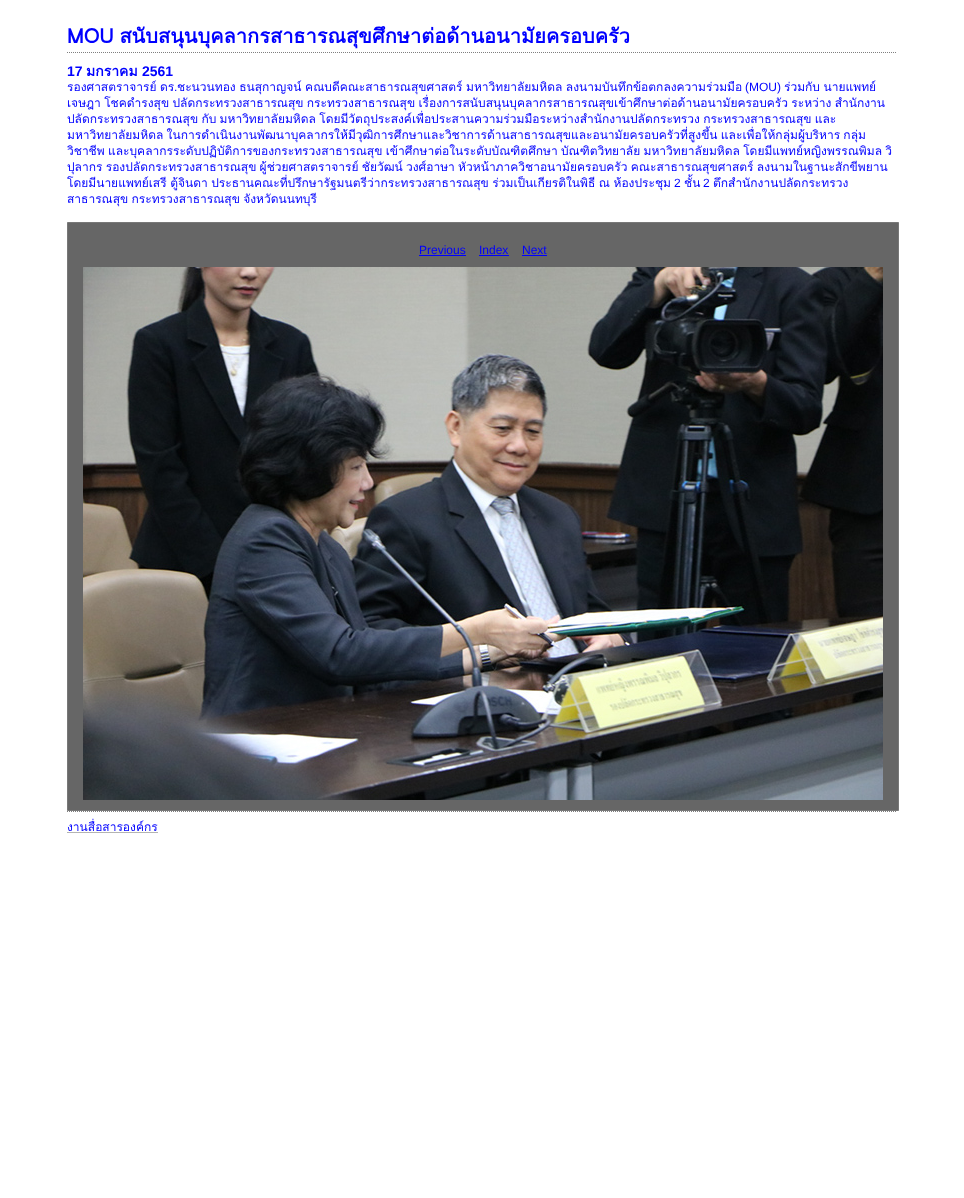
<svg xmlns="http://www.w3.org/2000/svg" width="964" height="1198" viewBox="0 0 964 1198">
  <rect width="100%" height="100%" fill="#fff"/>
  <path d="M67 52.5H897" fill="none" stroke="#7f7f7f" stroke-dasharray="1 1"/>
  <path d="M67.5 222.5h831v588H67.5z" fill="#666" stroke="#787878"/>
  <path d="M419 255h47v1H419z" fill="#00f"/>
  <path d="M479 255h30v1H479z" fill="#00f"/>
  <path d="M522 255h25v1H522z" fill="#00f"/>
  <image x="83" y="267" width="800" height="533" href="img/1.png"/>
  <path d="M67 811.5H897" fill="none" stroke="#7f7f7f" stroke-dasharray="1 1"/>
  <path d="M67 832h91v1H67z" fill="#b3b3b3"/>
  <text x="67" y="43" word-spacing="-1" font-family="Loma" font-size="20" font-weight="bold" fill="#00f">MOU สนับสนุนบุคลากรสาธารณสุขศึกษาต่อด้านอนามัยครอบครัว</text>
  <text x="67" y="76" font-family="Liberation Sans" font-size="14" font-weight="bold" fill="#00f">17</text>
  <text x="86" y="76" font-family="Loma" font-size="14" font-weight="bold" fill="#00f">มกราคม</text>
  <text x="142" y="76" font-family="Liberation Sans" font-size="14" font-weight="bold" fill="#00f">2561</text>
  <text x="67" y="91" word-spacing="-0.5" font-family="Loma" font-size="12" fill="#00f">รองศาสตราจารย์ ดร</text>
  <text x="174" y="91" font-family="Liberation Sans" font-size="12" fill="#00f">.</text>
  <text x="177" y="91" word-spacing="-0.5" font-family="Loma" font-size="12" fill="#00f">ชะนวนทอง ธนสุกาญจน์ คณบดีคณะสาธารณสุขศาสตร์ มหาวิทยาลัยมหิดล ลงนามบันทึกข้อตกลงความร่วมมือ</text>
  <text x="745" y="91" font-family="Liberation Sans" font-size="12" fill="#00f">(MOU)</text>
  <g font-family="Loma" font-size="12" fill="#00f">
    <text x="784" y="91" word-spacing="-0.5">ร่วมกับ นายแพทย์</text>
    <text x="67" y="107" word-spacing="-0.75">เจษฎา โชคดำรงสุข ปลัดกระทรวงสาธารณสุข กระทรวงสาธารณสุข เรื่องการสนับสนุนบุคลากรสาธารณสุขเข้าศึกษาต่อด้านอนามัยครอบครัว ระหว่าง สำนักงาน</text>
    <text x="67" y="123" word-spacing="-0.75">ปลัดกระทรวงสาธารณสุข กับ มหาวิทยาลัยมหิดล โดยมีวัตถุประสงค์เพื่อประสานความร่วมมือระหว่างสำนักงานปลัดกระทรวง กระทรวงสาธารณสุข และ</text>
    <text x="67" y="139" word-spacing="-0.75">มหาวิทยาลัยมหิดล ในการดำเนินงานพัฒนาบุคลากรให้มีวุฒิการศึกษาและวิชาการด้านสาธารณสุขและอนามัยครอบครัวที่สูงขึ้น และเพื่อให้กลุ่มผู้บริหาร กลุ่ม</text>
    <text x="67" y="155" word-spacing="-0.75">วิชาชีพ และบุคลากรระดับปฏิบัติการของกระทรวงสาธารณสุข เข้าศึกษาต่อในระดับบัณฑิตศึกษา บัณฑิตวิทยาลัย มหาวิทยาลัยมหิดล โดยมีแพทย์หญิงพรรณพิมล วิ</text>
    <text x="67" y="171" word-spacing="-0.75">ปุลากร รองปลัดกระทรวงสาธารณสุข ผู้ช่วยศาสตราจารย์ ชัยวัฒน์ วงศ์อาษา หัวหน้าภาควิชาอนามัยครอบครัว คณะสาธารณสุขศาสตร์ ลงนามในฐานะสักขีพยาน</text>
    <text x="67" y="187" word-spacing="-0.5">โดยมีนายแพทย์เสรี ตู้จินดา ประธานคณะที่ปรึกษารัฐมนตรีว่ากระทรวงสาธารณสุข ร่วมเป็นเกียรติในพิธี ณ ห้องประชุม</text>
  </g>
  <text x="674" y="187" font-family="Liberation Sans" font-size="12" fill="#00f">2</text>
  <text x="684" y="187" font-family="Loma" font-size="12" fill="#00f">ชั้น</text>
  <text x="703" y="187" font-family="Liberation Sans" font-size="12" fill="#00f">2</text>
  <g font-family="Loma" font-size="12" fill="#00f">
    <text x="713" y="187">ตึกสำนักงานปลัดกระทรวง</text>
    <text x="67" y="203" word-spacing="-0.75">สาธารณสุข กระทรวงสาธารณสุข จังหวัดนนทบุรี</text>
  </g>
  <g font-family="Liberation Sans" font-size="12" fill="#00f">
    <text x="419" y="254">Previous</text>
    <text x="479" y="254">Index</text>
    <text x="522" y="254">Next</text>
  </g>
  <text x="67" y="831" font-family="Loma" font-size="12" fill="#00f">งานสื่อสารองค์กร</text>
</svg>
